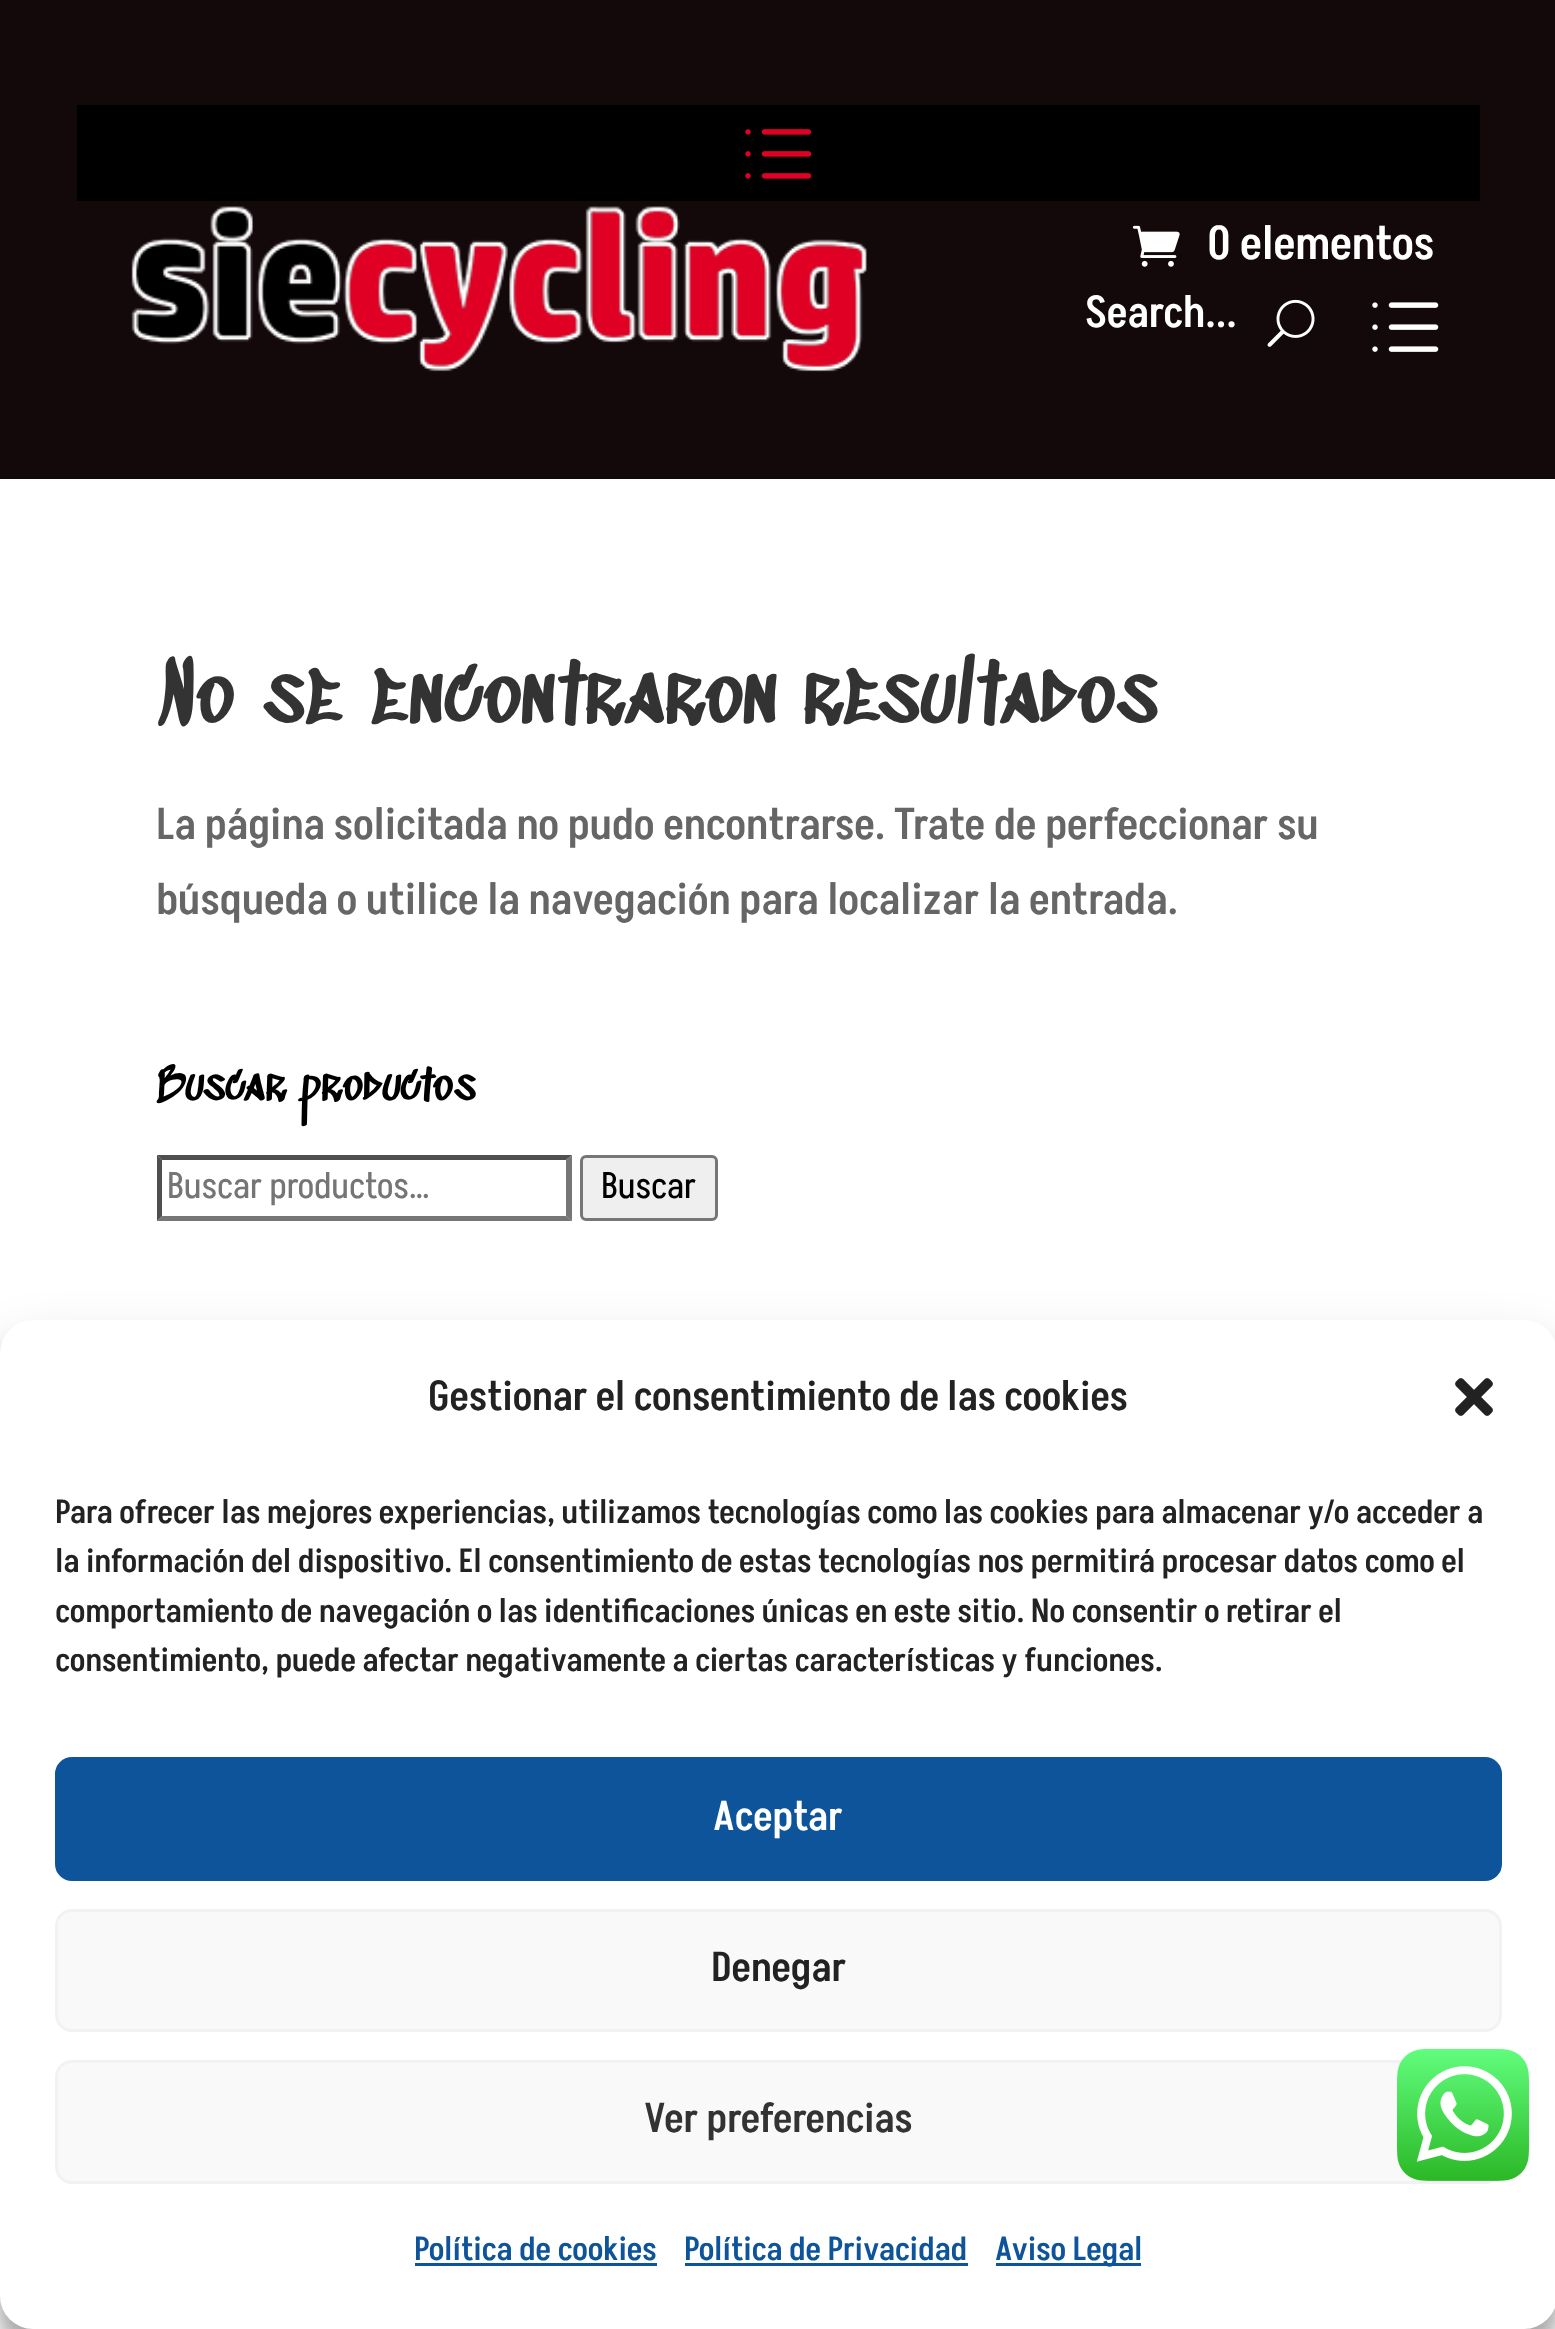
<svg xmlns="http://www.w3.org/2000/svg" width="1555" height="2329" viewBox="0 0 1555 2329">
  <rect width="100%" height="100%" fill="#fff"/>
  <path d="M0 0h1555v479H0z" fill="#14090a"/>
  <path d="M77 105h1403v96H77z" fill="#000"/>
  <image x="745" y="129" width="67" height="50" href="img/1.png"/>
  <image x="131" y="206" width="736" height="166" href="img/2.png"/>
  <image x="1132" y="225" width="48" height="42" href="img/3.png"/>
  <image x="1267" y="299" width="48" height="48" href="img/4.png"/>
  <image x="1372" y="302" width="67" height="50" href="img/5.png"/>
  <path d="M157 1155H572L566 1160H162Z" fill="#4f4f4f"/>
  <path d="M572 1155V1221L566 1216V1160Z" fill="#767676"/>
  <path d="M572 1221H157L162 1216H566Z" fill="#767676"/>
  <path d="M157 1221V1155L162 1160V1216Z" fill="#4f4f4f"/>
  <rect x="581.5" y="1156.5" width="135" height="63" rx="4.5" fill="#efefef" stroke="#767676" stroke-width="3"/>
  <rect y="1337" width="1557" height="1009" rx="33" fill="#0000003b" filter="blur(8px)"/>
  <rect y="1348" width="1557" height="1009" rx="33" fill="#00000030" filter="blur(27.5px)"/>
  <rect y="1320" width="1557" height="1009" rx="33" fill="#fff"/>
  <image x="1455" y="1378" width="38" height="38" href="img/6.png"/>
  <rect x="56.5" y="1758.5" width="1444" height="121" rx="15.5" fill="#0e549b" stroke="#0e549b" stroke-width="3"/>
  <rect x="56.5" y="1910.5" width="1444" height="120" rx="15.5" fill="#f9f9f9" stroke="#f2f2f2" stroke-width="3"/>
  <rect x="56.5" y="2061.5" width="1444" height="121" rx="15.5" fill="#f9f9f9" stroke="#f2f2f2" stroke-width="3"/>
  <path d="M415 2263h242v3H415z" fill="#0e549b"/>
  <path d="M685 2263h283v3H685z" fill="#0e549b"/>
  <path d="M996 2263h145v3H996z" fill="#0e549b"/>
  <image x="1397" y="2049" width="132" height="132" href="img/7.png"/>
  <text x="1207" y="259" font-family="Akshar" font-size="46.75" font-weight="500" fill="#fff">0 elementos</text>
  <text x="1085" y="327" font-family="Akshar" font-size="44" font-weight="500" fill="#fff">Search...</text>
  <text x="156" y="726" font-family="Sedgwick Ave Display" font-size="82.5" fill="#333">No se encontraron resultados</text>
  <g font-family="Akshar" font-size="44" font-weight="500" fill="#666">
    <text x="156" y="839">La página solicitada no pudo encontrarse. Trate de perfeccionar su</text>
    <text x="156" y="914">búsqueda o utilice la navegación para localizar la entrada.</text>
  </g>
  <text x="156" y="1102" font-family="Sedgwick Ave Display" font-size="44" fill="#000">Buscar productos</text>
  <text x="167" y="1198" font-family="Akshar" font-size="36.75" fill="#757575">Buscar productos…</text>
  <text x="601" y="1198" font-family="Akshar" font-size="36.75" fill="#000">Buscar</text>
  <text x="428" y="1410" font-family="Akshar" font-size="41.25" font-weight="500" fill="#222">Gestionar el consentimiento de las cookies</text>
  <g font-family="Akshar" font-size="33" font-weight="500" fill="#222">
    <text x="55" y="1523">Para ofrecer las mejores experiencias, utilizamos tecnologías como las cookies para almacenar y/o acceder a</text>
    <text x="55" y="1572">la información del dispositivo. El consentimiento de estas tecnologías nos permitirá procesar datos como el</text>
    <text x="55" y="1622">comportamiento de navegación o las identificaciones únicas en este sitio. No consentir o retirar el</text>
    <text x="55" y="1671">consentimiento, puede afectar negativamente a ciertas características y funciones.</text>
  </g>
  <text x="713" y="1830" font-family="Akshar" font-size="41.25" font-weight="500" fill="#fff">Aceptar</text>
  <text x="711" y="1981" font-family="Akshar" font-size="41.25" font-weight="500" fill="#222">Denegar</text>
  <text x="644" y="2132" font-family="Akshar" font-size="41.25" font-weight="500" fill="#333">Ver preferencias</text>
  <g font-family="Akshar" font-size="33" font-weight="500" fill="#0e549b">
    <text x="414" y="2260">Política de cookies</text>
    <text x="684" y="2260">Política de Privacidad</text>
    <text x="995" y="2260">Aviso Legal</text>
  </g>
</svg>
